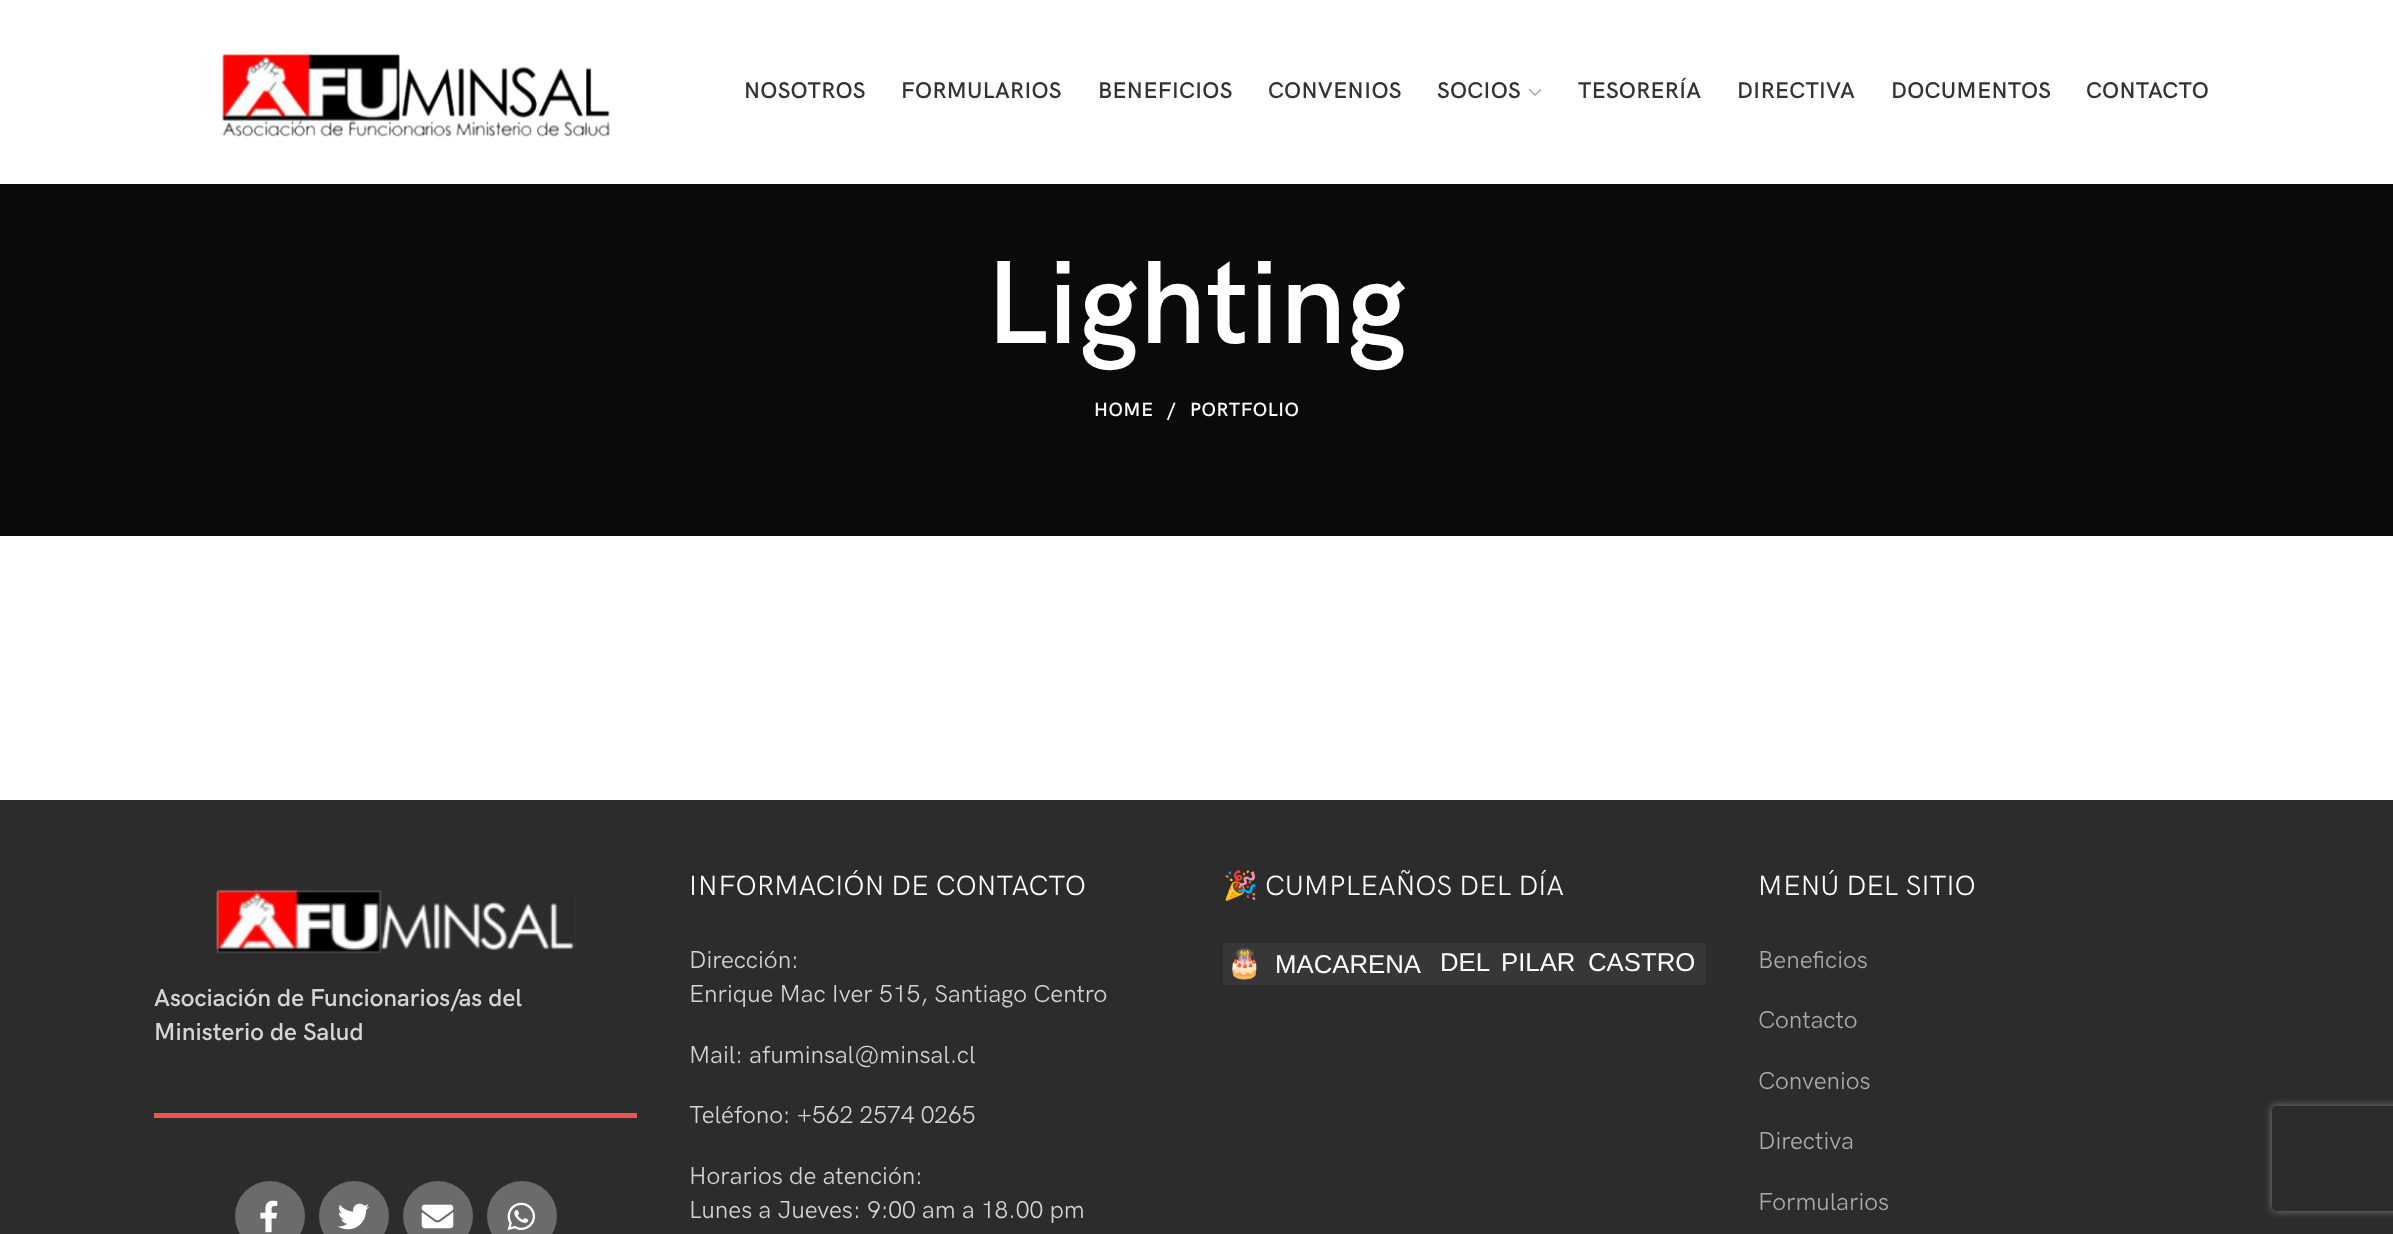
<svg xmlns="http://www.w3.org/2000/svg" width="2393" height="1234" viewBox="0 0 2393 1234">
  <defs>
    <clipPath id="clip1"><path d="M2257 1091H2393V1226H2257ZM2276 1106H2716C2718 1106 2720 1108 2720 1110V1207C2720 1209 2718 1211 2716 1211H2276C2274 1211 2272 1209 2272 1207V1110C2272 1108 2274 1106 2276 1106Z" clip-rule="evenodd"/></clipPath>
  </defs>
  <rect width="100%" height="100%" fill="#fff"/>
  <image x="222" y="53" width="388" height="84" href="img/1.png"/>
  <image x="1528" y="88" width="14" height="8" href="img/2.png"/>
  <path d="M0 184h2393v352H0z" fill="#0a0a0a"/>
  <path d="M0 800h2393v434H0z" fill="#2d2c2c"/>
  <image x="215" y="889" width="361" height="65" href="img/3.png"/>
  <path d="M154 1113h483v5H154z" fill="#f4524d"/>
  <circle cx="270" cy="1216" r="35" fill="#6c6b6b"/>
  <image x="260" y="1200" width="18" height="33" href="img/4.png"/>
  <circle cx="354" cy="1216" r="35" fill="#6c6b6b"/>
  <image x="338" y="1203" width="32" height="27" href="img/5.png"/>
  <circle cx="438" cy="1216" r="35" fill="#6c6b6b"/>
  <image x="421" y="1204" width="33" height="25" href="img/6.png"/>
  <circle cx="522" cy="1216" r="35" fill="#6c6b6b"/>
  <image x="507" y="1202" width="29" height="29" href="img/7.png"/>
  <path d="M1223 943h483v42H1223z" fill="#383737"/>
  <g clip-path="url(#clip1)">
    <rect x="2272" y="1106" width="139" height="105" rx="4" fill="#808080" filter="blur(4.5px)"/>
  </g>
  <g font-family="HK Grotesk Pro" font-size="22.75" font-weight="600" letter-spacing="0.3" fill="#333">
    <text x="744" y="98">NOSOTROS</text>
    <text x="901" y="98">FORMULARIOS</text>
    <text x="1098" y="98">BENEFICIOS</text>
    <text x="1268" y="98">CONVENIOS</text>
    <text x="1437" y="98">SOCIOS</text>
    <text x="1578" y="98">TESORERÍA</text>
    <text x="1737" y="98">DIRECTIVA</text>
    <text x="1891" y="98">DOCUMENTOS</text>
    <text x="2086" y="98">CONTACTO</text>
  </g>
  <text x="986" y="343" font-family="HK Grotesk Pro" font-size="119" font-weight="600" fill="#fff">Lighting</text>
  <g font-family="HK Grotesk Pro" font-size="19.25" font-weight="600" letter-spacing="0.5" fill="#fff">
    <text x="1094" y="416">HOME</text>
    <text x="1167" y="416">/</text>
    <text x="1190" y="416">PORTFOLIO</text>
  </g>
  <g font-family="HK Grotesk Pro" font-size="24.5" font-weight="600" fill="#d5d5d5">
    <text x="154" y="1006">Asociación de Funcionarios/as del</text>
    <text x="154" y="1040">Ministerio de Salud</text>
  </g>
  <text x="689" y="895" font-family="HK Grotesk Pro" font-size="28" fill="#fff">INFORMACIÓN DE CONTACTO</text>
  <g font-family="HK Grotesk Pro" font-size="24.5" fill="#d5d5d5">
    <text x="689" y="968">Dirección:</text>
    <text x="689" y="1002">Enrique Mac Iver 515, Santiago Centro</text>
    <text x="689" y="1063">Mail: afuminsal@minsal.cl</text>
    <text x="689" y="1123">Teléfono: +562 2574 0265</text>
    <text x="689" y="1184">Horarios de atención:</text>
    <text x="689" y="1218">Lunes a Jueves: 9:00 am a 18.00 pm</text>
  </g>
  <text x="1223" y="895" font-family="Noto Color Emoji" font-size="28" fill="#fff">🎉</text>
  <text x="1265" y="895" font-family="HK Grotesk Pro" font-size="28" fill="#fff">CUMPLEAÑOS DEL DÍA</text>
  <text x="1227" y="973" font-family="Noto Color Emoji" font-size="28" fill="#fff">🎂</text>
  <g font-family="Liberation Sans" font-size="25.75" fill="#fff">
    <text x="1275" y="973">MACARENA</text>
    <text x="1440" y="971">DEL</text>
    <text x="1501" y="971">PILAR</text>
    <text x="1588" y="971">CASTRO</text>
  </g>
  <text x="1758" y="895" font-family="HK Grotesk Pro" font-size="28" fill="#fff">MENÚ DEL SITIO</text>
  <g font-family="HK Grotesk Pro" font-size="24.5" fill="#ababab">
    <text x="1758" y="968">Beneficios</text>
    <text x="1758" y="1028">Contacto</text>
    <text x="1758" y="1089">Convenios</text>
    <text x="1758" y="1149">Directiva</text>
    <text x="1758" y="1210">Formularios</text>
  </g>
</svg>
